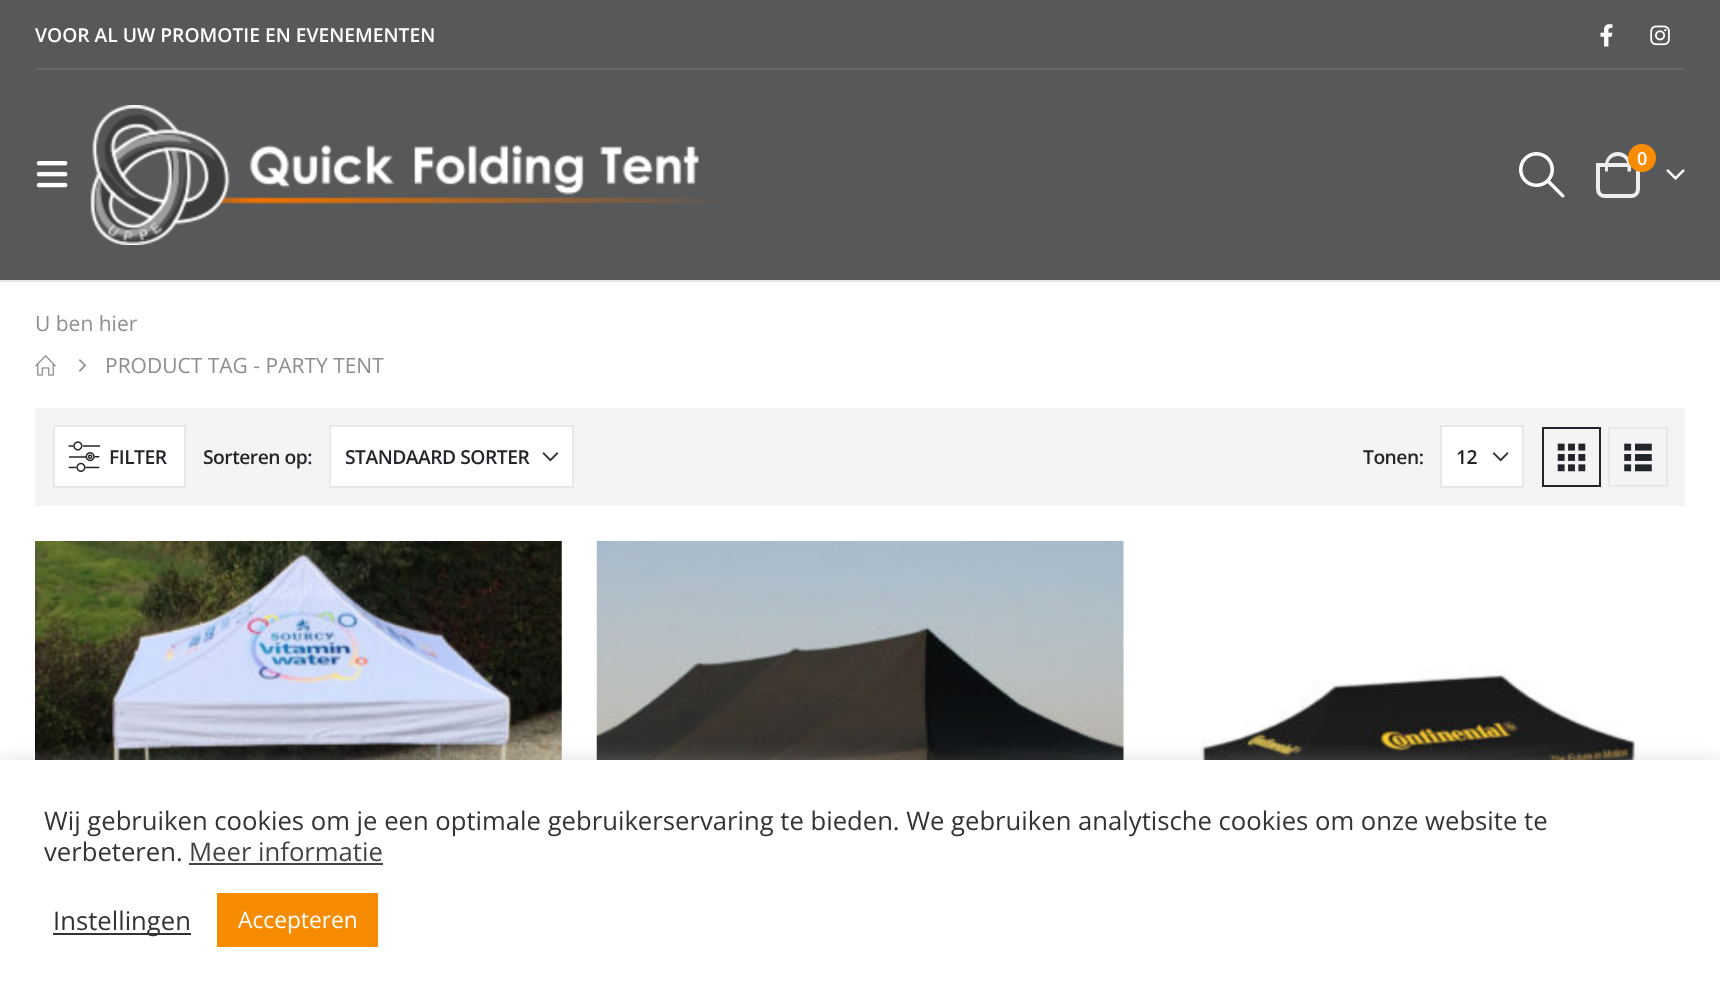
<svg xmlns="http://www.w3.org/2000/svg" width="1720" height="999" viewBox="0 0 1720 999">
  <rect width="100%" height="100%" fill="#fff"/>
  <path d="M0 280h1720v2H0z" fill="#e7e7e7"/>
  <path d="M0 0h1720v280H0z" fill="#575859"/>
  <image x="1600" y="24" width="13" height="23" href="img/1.png"/>
  <image x="1650" y="25" width="20" height="21" href="img/2.png"/>
  <path d="M35 68h1650v2H35z" fill="#666768"/>
  <image x="36" y="161" width="32" height="27" href="img/3.png"/>
  <image x="90" y="105" width="634" height="140" href="img/4.png"/>
  <image x="1519" y="152" width="46" height="46" href="img/5.png"/>
  <path d="M1598 165H1638V189C1638 193 1635 196 1631 196H1605C1601 196 1598 193 1598 189Z" fill="none" stroke="#eee" stroke-width="4"/>
  <path d="M1618 152C1625 152 1631 158 1631 165.5V171.5H1605V165.5C1605 158 1610.5 152 1618 152ZM1618 156C1623 156 1627.5 160 1627.5 165.5V171.5H1608V165.5C1608 160 1612.5 156 1618 156Z" fill="#eee" fill-rule="evenodd"/>
  <circle cx="1642" cy="158" r="14" fill="#f78c02"/>
  <image x="1666" y="169" width="19" height="11" href="img/6.png"/>
  <image x="35" y="355" width="21" height="21" href="img/7.png"/>
  <image x="78" y="359" width="9" height="13" href="img/8.png"/>
  <path d="M35 408h1650v98H35z" fill="#f4f4f4"/>
  <path d="M54 426h131v61H54z" fill="#fff" stroke="#e7e7e7" stroke-width="2"/>
  <image x="68" y="441" width="32" height="31" href="img/9.png"/>
  <path d="M331 427h241v59H331z" fill="#fff"/>
  <image x="542" y="452" width="17" height="10" href="img/10.png"/>
  <path d="M330 426h243v61H330z" fill="none" stroke="#e7e7e7" stroke-width="2"/>
  <path d="M1442 427h80v59H1442z" fill="#fff"/>
  <image x="1492" y="452" width="17" height="10" href="img/11.png"/>
  <path d="M1441 426h82v61H1441z" fill="none" stroke="#e7e7e7" stroke-width="2"/>
  <path d="M1543 428h57v58H1543z" fill="none" stroke="#222529" stroke-width="2"/>
  <image x="1557" y="443" width="29" height="29" href="img/12.png"/>
  <path d="M1609 428h58v58H1609z" fill="none" stroke="#e7e7e7" stroke-width="2"/>
  <image x="1624" y="443" width="28" height="29" href="img/13.png"/>
  <image x="35" y="541" width="527" height="219" href="img/14.png"/>
  <image x="596" y="541" width="528" height="219" href="img/15.png"/>
  <image x="1159" y="669" width="527" height="91" href="img/16.png"/>
  <path d="M0 758h1720v240H0z" fill="#acabab4d" filter="blur(9px)"/>
  <path d="M0 760h1720v239H0z" fill="#fff"/>
  <path d="M189 863h194v2H189z" fill="#444"/>
  <path d="M53 933h138v2H53z" fill="#333"/>
  <path d="M217 893h161v54H217z" fill="#f78c02"/>
  <text x="35" y="42" font-family="Open Sans" font-size="19.25" font-weight="600" fill="#fff">VOOR AL UW PROMOTIE EN EVENEMENTEN</text>
  <text x="1637" y="165" font-family="Open Sans" font-size="18" font-weight="600" fill="#fff">0</text>
  <g font-family="Open Sans" font-size="21" fill="#8e8e8e">
    <text x="35" y="331">U ben hier</text>
    <text x="105" y="373">PRODUCT TAG - PARTY TENT</text>
  </g>
  <g font-family="Open Sans" font-size="19.25" font-weight="600" letter-spacing="-0.5" fill="#222529">
    <text x="109" y="464">FILTER</text>
    <text x="203" y="464">Sorteren op:</text>
    <text x="345" y="464">STANDAARD SORTER</text>
    <text x="1363" y="464">Tonen:</text>
    <text x="1456" y="464">12</text>
  </g>
  <g font-family="Open Sans" font-size="25.67" fill="#333">
    <text x="44" y="830">Wij gebruiken cookies om je een optimale gebruikerservaring te bieden. We gebruiken analytische cookies om onze website te</text>
    <text x="44" y="861">verbeteren.</text>
  </g>
  <text x="189" y="861" font-family="Open Sans" font-size="25.67" fill="#444">Meer informatie</text>
  <text x="53" y="930" font-family="Open Sans" font-size="25.67" fill="#333">Instellingen</text>
  <text x="238" y="928" font-family="Open Sans" font-size="22.75" fill="#fff">Accepteren</text>
</svg>
